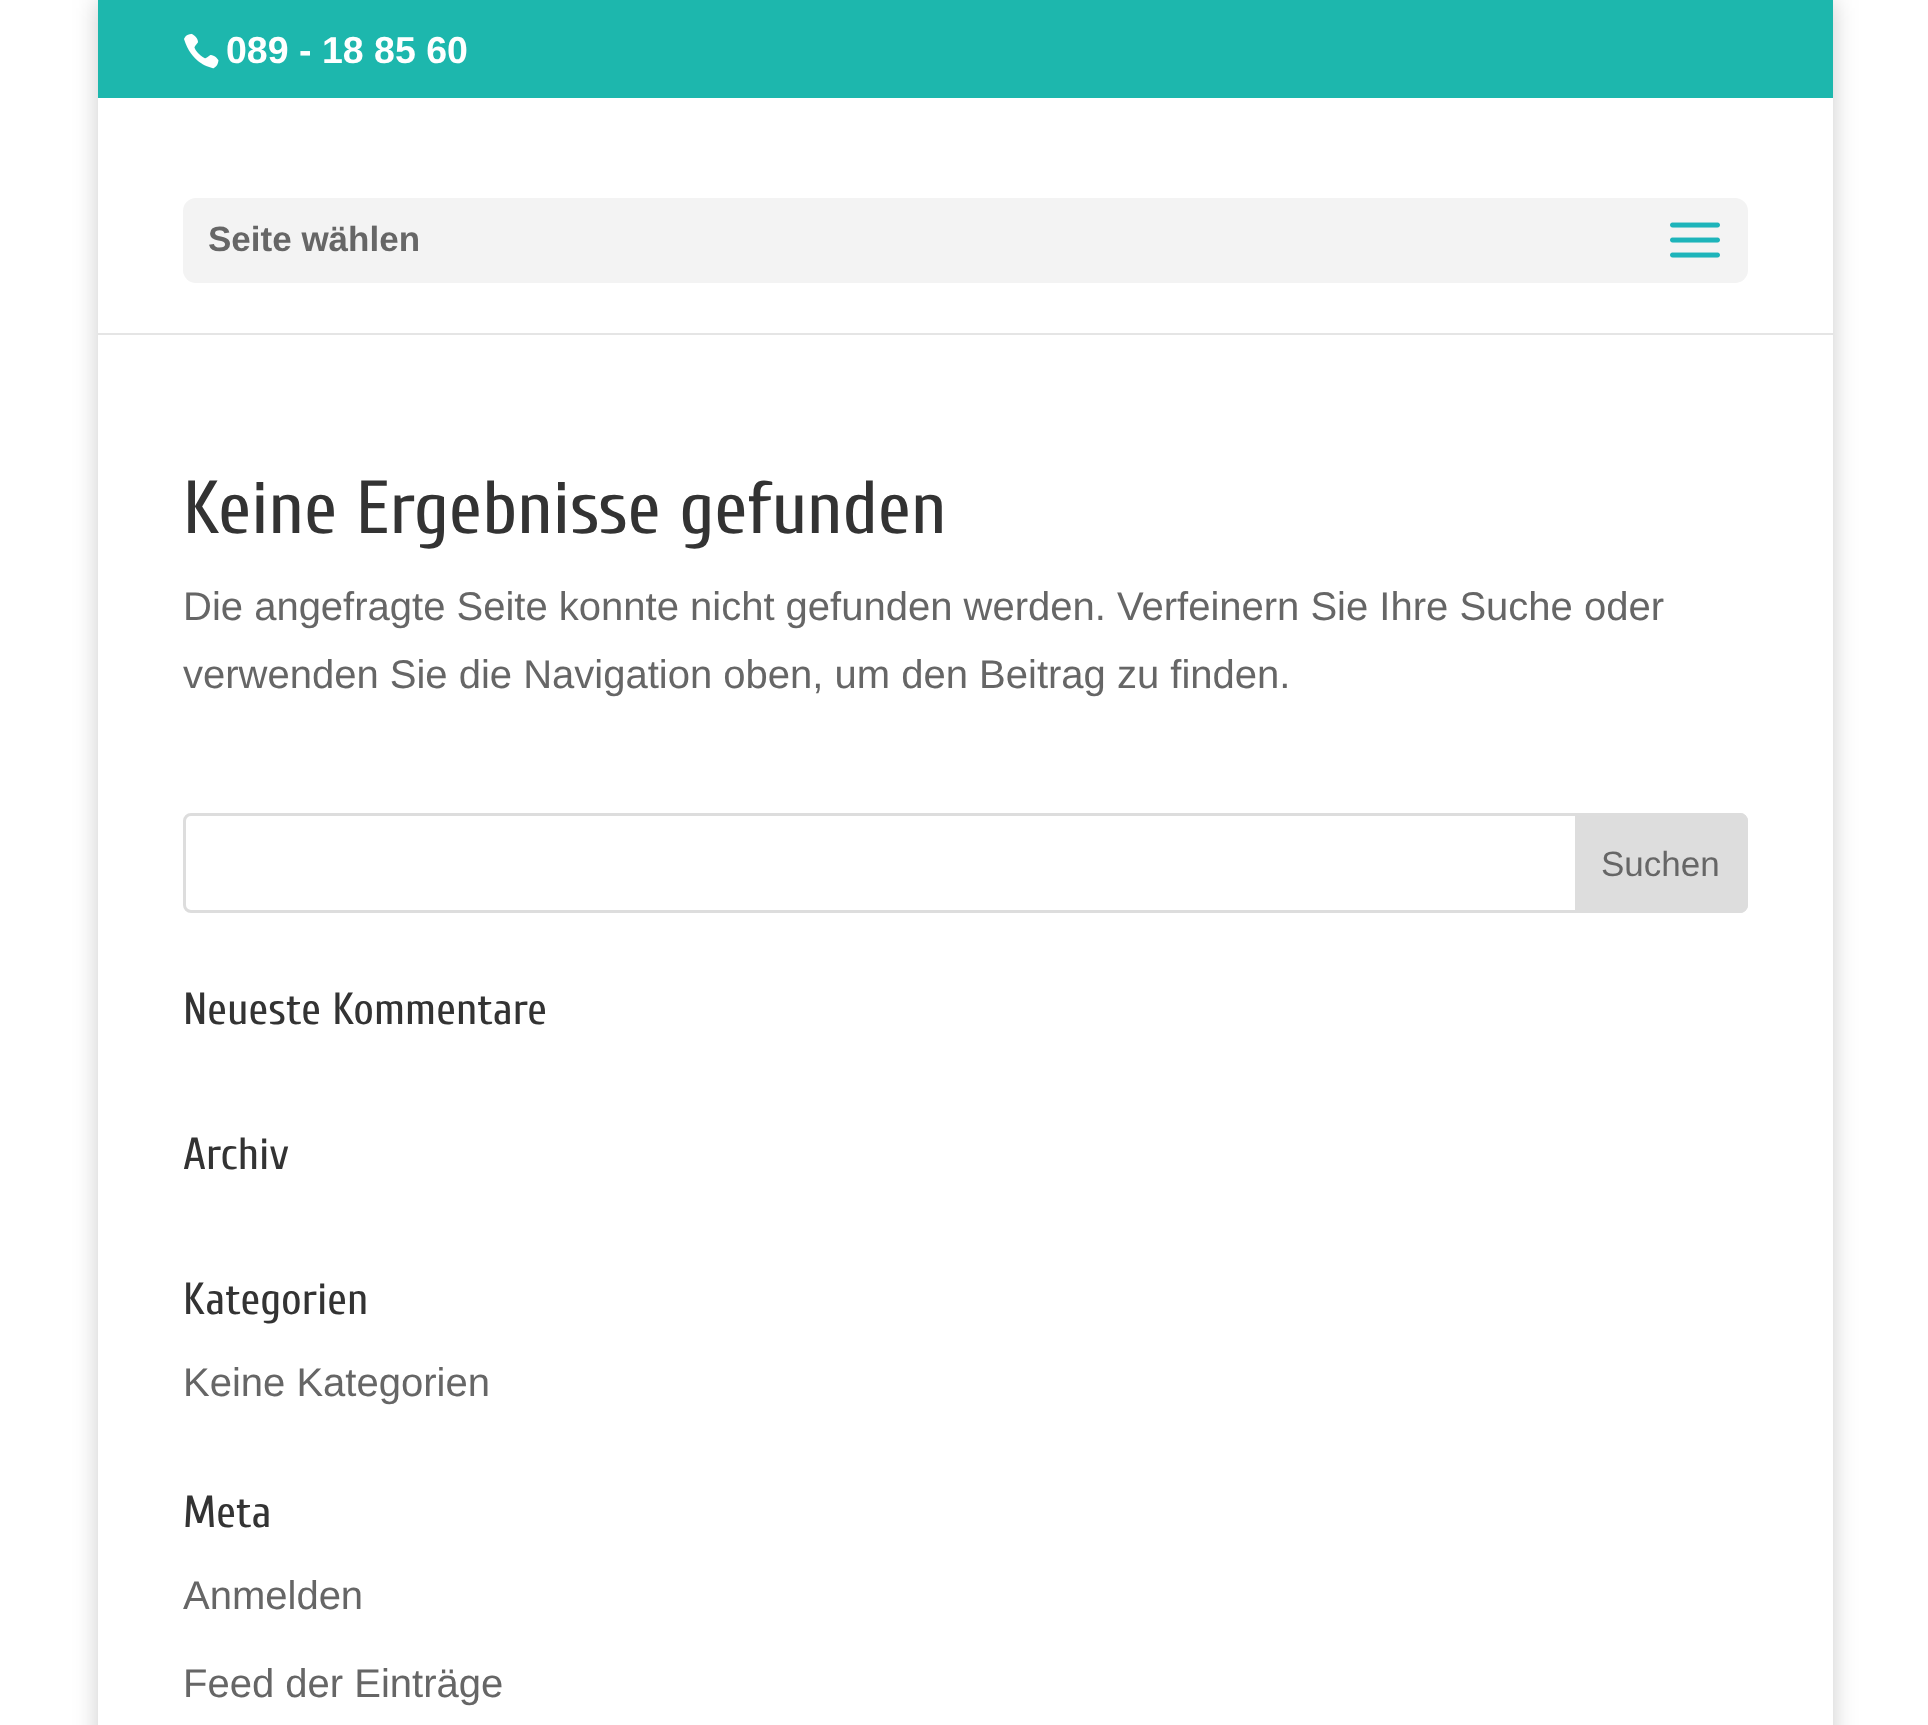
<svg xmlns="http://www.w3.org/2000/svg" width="1928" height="1725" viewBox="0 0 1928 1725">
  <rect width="100%" height="100%" fill="#fff"/>
  <path d="M98 0h1735v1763H98z" fill="#00000033" filter="blur(12.5px)"/>
  <path d="M98 0h1735v98H98z" fill="#1db7ad"/>
  <image x="184" y="33" width="35" height="36" href="img/1.png"/>
  <path d="M98 333h1735v1392H98z" fill="#fff"/>
  <path d="M98 332V335H1833V100H1832V332Z" fill="#0000001a"/>
  <path d="M98 98h1735v235H98z" fill="#fff"/>
  <rect x="183" y="198" width="1565" height="85" rx="13" fill="#f3f3f3"/>
  <image x="1670" y="222" width="50" height="36" href="img/2.png"/>
  <rect x="184.5" y="814.5" width="1562" height="97" rx="6.5" fill="none" stroke="#ddd" stroke-width="3"/>
  <path d="M1576.5 814.5H1740C1743.5 814.5 1746.5 817.5 1746.5 821V905C1746.5 908.5 1743.5 911.5 1740 911.5H1576.5Z" fill="#ddd" stroke="#ddd" stroke-width="3"/>
  <text x="226" y="63" font-family="Liberation Sans" font-size="37.5" font-weight="bold" fill="#fff">089 - 18 85 60</text>
  <text x="208" y="251" font-family="Liberation Sans" font-size="35" font-weight="bold" fill="#666">Seite wählen</text>
  <text x="183" y="533" font-family="Cuprum" font-size="75" fill="#333">Keine Ergebnisse gefunden</text>
  <g font-family="Liberation Sans" font-size="40" fill="#666">
    <text x="183" y="620">Die angefragte Seite konnte nicht gefunden werden. Verfeinern Sie Ihre Suche oder</text>
    <text x="183" y="688">verwenden Sie die Navigation oben, um den Beitrag zu finden.</text>
  </g>
  <text x="1601" y="876" font-family="Liberation Sans" font-size="35" fill="#666">Suchen</text>
  <g font-family="Cuprum" font-size="45" fill="#333">
    <text x="183" y="1024">Neueste Kommentare</text>
    <text x="183" y="1169">Archiv</text>
    <text x="183" y="1314">Kategorien</text>
  </g>
  <text x="183" y="1396" font-family="Liberation Sans" font-size="40" fill="#666">Keine Kategorien</text>
  <text x="183" y="1527" font-family="Cuprum" font-size="45" fill="#333">Meta</text>
  <g font-family="Liberation Sans" font-size="40" fill="#666">
    <text x="183" y="1609">Anmelden</text>
    <text x="183" y="1697">Feed der Einträge</text>
  </g>
</svg>
